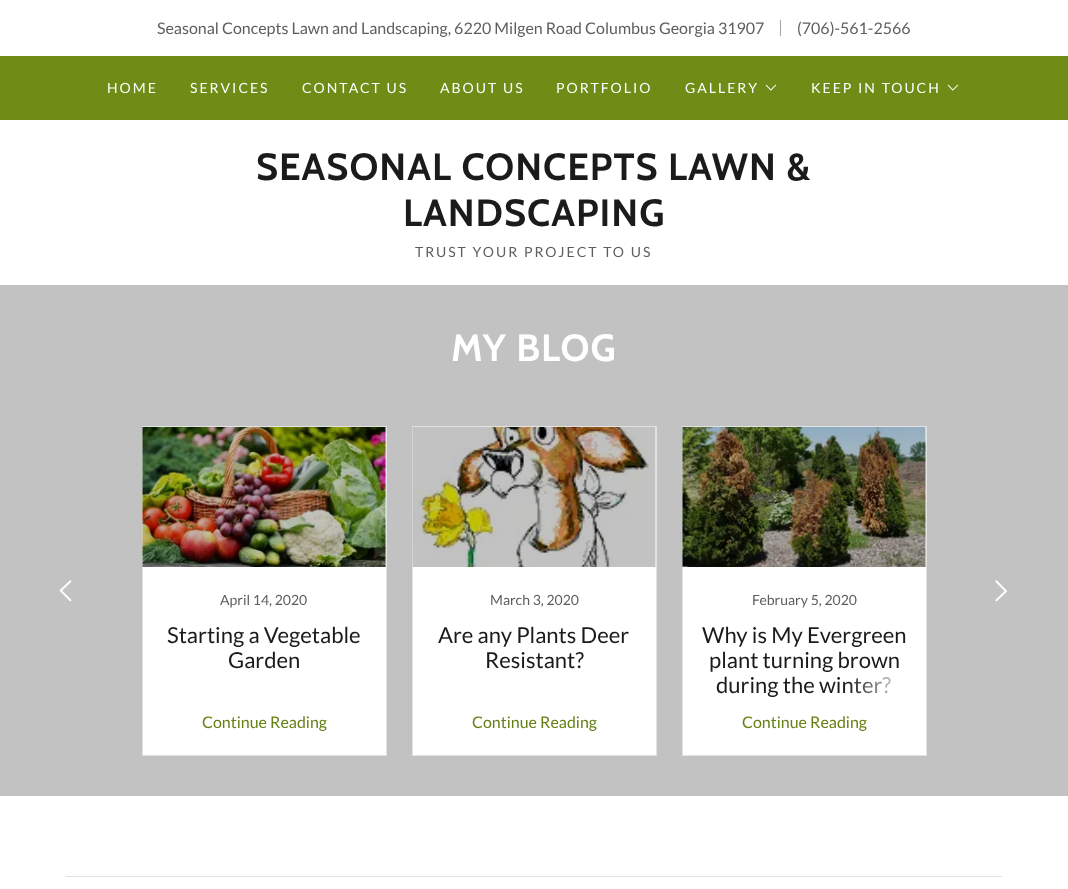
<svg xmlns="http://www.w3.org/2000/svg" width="1068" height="889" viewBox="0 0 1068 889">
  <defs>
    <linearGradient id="g1" gradientUnits="userSpaceOnUse" x1="847" y1="685" x2="910" y2="685"><stop offset="0" stop-color="#fff" stop-opacity="0"/><stop offset="1" stop-color="#fff"/></linearGradient>
  </defs>
  <rect width="100%" height="100%" fill="#fff"/>
  <path d="M780 20h1v16H780z" fill="#a4a4a4"/>
  <path d="M0 56h1068v64H0z" fill="#6e8c16"/>
  <image x="765" y="84" width="12" height="7" href="img/1.png"/>
  <image x="947" y="84" width="12" height="7" href="img/1.png"/>
  <path d="M0 285h1068v511H0z" fill="#c2c2c2"/>
  <image x="59" y="580" width="13" height="22" href="img/2.png"/>
  <image x="995" y="580" width="13" height="22" href="img/3.png"/>
  <path d="M142.5 426.5h244v329H142.5z" fill="#fff" stroke="#e2e2e2"/>
  <image x="142" y="427" width="244" height="140" href="img/4.png"/>
  <path d="M412.5 426.5h244v329H412.5z" fill="#fff" stroke="#e2e2e2"/>
  <image x="412" y="427" width="244" height="140" href="img/5.png"/>
  <path d="M682.5 426.5h244v329H682.5z" fill="#fff" stroke="#e2e2e2"/>
  <image x="682" y="427" width="244" height="140" href="img/6.png"/>
  <path d="M66 876h936v1H66z" fill="#e2e2e2"/>
  <g font-family="Lato" font-size="16" fill="#5e5e5e">
    <text x="157" y="34">Seasonal Concepts Lawn and Landscaping, 6220 Milgen Road Columbus Georgia 31907</text>
    <text x="797" y="34">(706)-561-2566</text>
  </g>
  <g font-family="Lato" font-size="14" letter-spacing="2" fill="#fff">
    <text x="107" y="93">HOME</text>
    <text x="190" y="93">SERVICES</text>
    <text x="302" y="93">CONTACT US</text>
    <text x="440" y="93">ABOUT US</text>
    <text x="556" y="93">PORTFOLIO</text>
    <text x="685" y="93">GALLERY</text>
    <text x="811" y="93">KEEP IN TOUCH</text>
  </g>
  <g font-family="Cabin" font-size="38" font-weight="bold" letter-spacing="1" fill="#1b1b1b">
    <text x="256" y="180">SEASONAL CONCEPTS LAWN &amp;</text>
    <text x="403" y="226">LANDSCAPING</text>
  </g>
  <text x="415" y="257" font-family="Lato" font-size="14" letter-spacing="2" fill="#5e5e5e">TRUST YOUR PROJECT TO US</text>
  <text x="451" y="361" font-family="Cabin" font-size="38" font-weight="bold" letter-spacing="1" fill="#fff">MY BLOG</text>
  <text x="220" y="605" font-family="Lato" font-size="14" fill="#5e5e5e">April 14, 2020</text>
  <g font-family="Lato" font-size="22" fill="#1b1b1b">
    <text x="167" y="643">Starting a Vegetable</text>
    <text x="228" y="668">Garden</text>
  </g>
  <text x="202" y="728" font-family="Lato" font-size="16" fill="#648014">Continue Reading</text>
  <text x="490" y="605" font-family="Lato" font-size="14" fill="#5e5e5e">March 3, 2020</text>
  <g font-family="Lato" font-size="22" fill="#1b1b1b">
    <text x="438" y="643">Are any Plants Deer</text>
    <text x="485" y="668">Resistant?</text>
  </g>
  <text x="472" y="728" font-family="Lato" font-size="16" fill="#648014">Continue Reading</text>
  <text x="752" y="605" font-family="Lato" font-size="14" fill="#5e5e5e">February 5, 2020</text>
  <g font-family="Lato" font-size="22" fill="#1b1b1b">
    <text x="702" y="643">Why is My Evergreen</text>
    <text x="709" y="668">plant turning brown</text>
    <text x="716" y="693">during the winter?</text>
  </g>
  <path d="M848 677h44v17H848z" fill="url(#g1)"/>
  <text x="742" y="728" font-family="Lato" font-size="16" fill="#648014">Continue Reading</text>
</svg>
